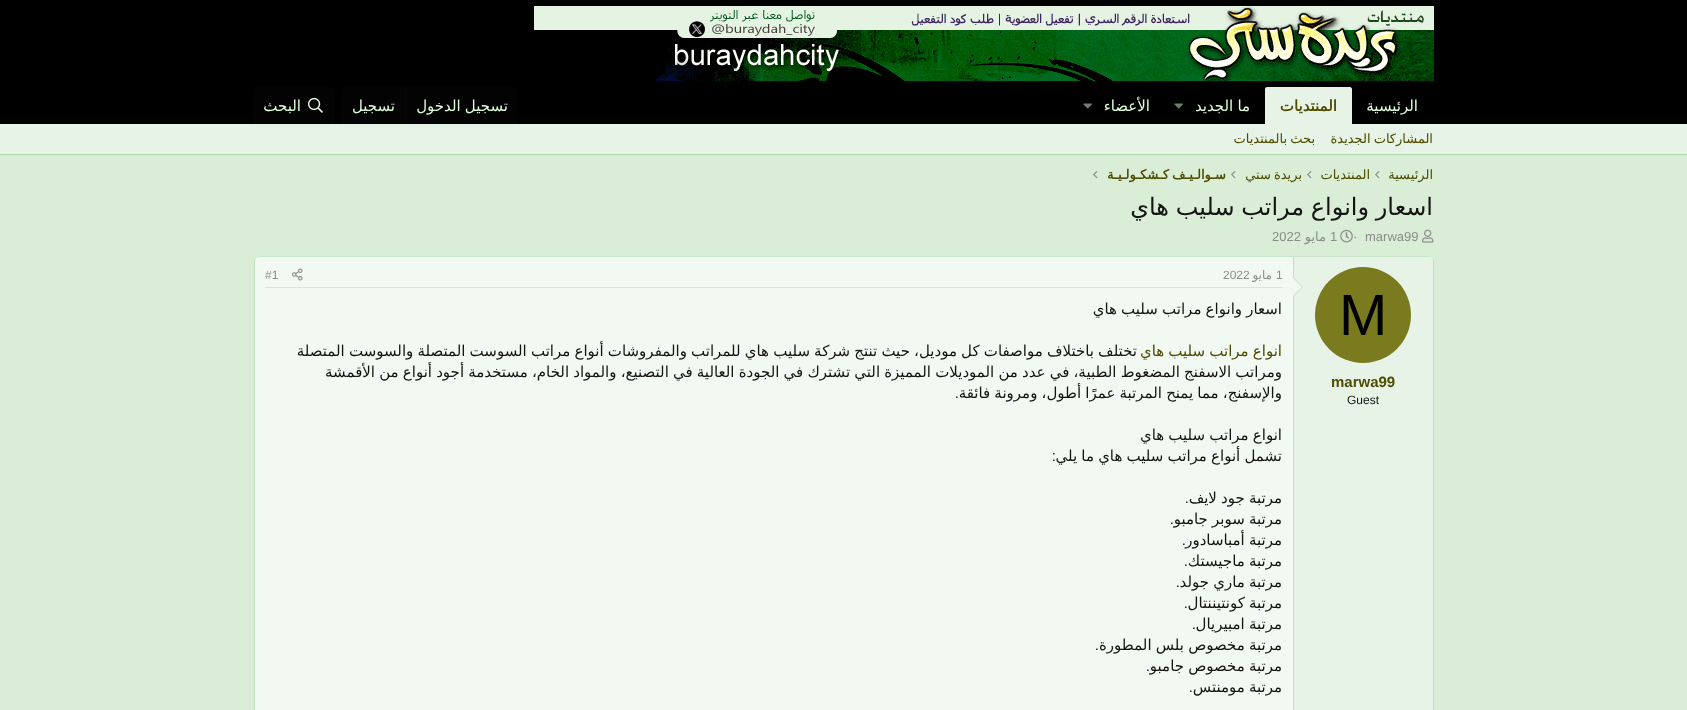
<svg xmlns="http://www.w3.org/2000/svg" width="1687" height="710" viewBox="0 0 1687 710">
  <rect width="100%" height="100%" fill="#daeed7"/>
  <path d="M0 0h1687v124H0z" fill="#000"/>
  <image x="534" y="6" width="900" height="75" href="img/1.png"/>
  <path d="M1267 87H1350C1351 87 1352 88 1352 89V124H1265V89C1265 88 1266 87 1267 87Z" fill="#e6f3e6"/>
  <image x="1174" y="103" width="9" height="6" href="img/2.png"/>
  <image x="1083" y="103" width="9" height="6" href="img/2.png"/>
  <path d="M346 87H514C516 87 518 89 518 91V124H342V91C342 89 344 87 346 87Z" fill="#030303"/>
  <path d="M405 87h1v37H405z" fill="#060606"/>
  <path d="M258 87H331C333 87 335 89 335 91V124H254V91C254 89 256 87 258 87Z" fill="#030303"/>
  <image x="308" y="97" width="15" height="16" href="img/3.png"/>
  <path d="M0 124h1687v30H0z" fill="#e6f3e6"/>
  <path d="M0 154h1687v1H0z" fill="#acd9ac"/>
  <image x="1375" y="171" width="5" height="8" href="img/4.png"/>
  <image x="1307" y="171" width="5" height="8" href="img/4.png"/>
  <image x="1231" y="171" width="5" height="8" href="img/4.png"/>
  <image x="1093" y="171" width="5" height="8" href="img/4.png"/>
  <image x="1422" y="229" width="12" height="14" href="img/5.png"/>
  <image x="1340" y="229" width="13" height="14" href="img/6.png"/>
  <rect x="254" y="256" width="1180" height="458" rx="4" fill="#f2f9f2"/>
  <path d="M255.5 257.5L258 256.5H1430L1432.5 257.5" fill="none" stroke="#c8e6c8"/>
  <path d="M1432.5 257.5C1433 258 1433.5 259 1433.5 260V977C1433.5 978 1433 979 1432.5 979.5" fill="none" stroke="#bee1be"/>
  <path d="M255.5 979.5C255 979 254.5 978 254.5 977V260C254.5 259 255 258 255.5 257.5" fill="none" stroke="#bee1be"/>
  <path d="M1293 257H1430C1431.5 257 1433 258.5 1433 260V710C1433 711.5 1431.5 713 1430 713H1293Z" fill="#e6f3e6"/>
  <path d="M1293 257h1v453H1293z" fill="#bee1be"/>
  <path d="M1293 297V277L1303 287Z" fill="#bee1be"/>
  <path d="M1293 296V278L1302 287Z" fill="#f2f9f2"/>
  <circle cx="1363" cy="315" r="48" fill="#7a7a1f"/>
  <path d="M265 287h1018v1H265z" fill="#d3ebd3"/>
  <image x="292" y="268" width="11" height="13" href="img/7.png"/>
  <text x="1418" y="111" font-family="DejaVu Sans" font-size="15" direction="rtl" fill="#deffd9">الرئيسية</text>
  <text x="1337" y="111" font-family="DejaVu Sans" font-size="15" font-weight="bold" direction="rtl" fill="#4d4c00">المنتديات</text>
  <g font-family="DejaVu Sans" font-size="15" direction="rtl" fill="#deffd9">
    <text x="1250" y="111" word-spacing="-0.6">ما الجديد</text>
    <text x="1150" y="111">الأعضاء</text>
    <text x="508" y="111" word-spacing="-0.6">تسجيل الدخول</text>
    <text x="395" y="111">تسجيل</text>
    <text x="301" y="111">البحث</text>
  </g>
  <g font-family="DejaVu Sans" font-size="13" direction="rtl" fill="#4d4c00">
    <text x="1433" y="143" word-spacing="-1">المشاركات الجديدة</text>
    <text x="1315" y="143" word-spacing="-1">بحث بالمنتديات</text>
    <text x="1433" y="179">الرئيسية</text>
    <text x="1370" y="179">المنتديات</text>
    <text x="1302" y="179" word-spacing="-1">بريدة ستي</text>
  </g>
  <text x="1226" y="179" word-spacing="-1" font-family="DejaVu Sans" font-size="13" font-weight="bold" direction="rtl" fill="#4d4c00">سـوالـيـف كـشكـولـيـة</text>
  <text x="1433" y="215" word-spacing="-1" font-family="DejaVu Sans" font-size="24" direction="rtl" fill="#141414">اسعار وانواع مراتب سليب هاي</text>
  <g font-family="Liberation Sans" font-size="13" fill="#8c8c8c">
    <text x="1365" y="241">marwa99</text>
    <text x="1353" y="241">·</text>
    <text x="1330" y="241">1</text>
  </g>
  <text x="1326" y="241" font-family="DejaVu Sans" font-size="13" direction="rtl" fill="#8c8c8c">مايو</text>
  <text x="1272" y="241" font-family="Liberation Sans" font-size="13" fill="#8c8c8c">2022</text>
  <text x="1339" y="335" font-family="Liberation Sans" font-size="58" fill="#000">M</text>
  <text x="1331" y="387" font-family="Liberation Sans" font-size="15" font-weight="bold" fill="#4d4c00">marwa99</text>
  <text x="1347" y="404" font-family="Liberation Sans" font-size="12" fill="#141414">Guest</text>
  <text x="1276" y="279" font-family="Liberation Sans" font-size="12" fill="#8c8c8c">1</text>
  <text x="1272" y="279" font-family="DejaVu Sans" font-size="12" direction="rtl" fill="#8c8c8c">مايو</text>
  <g font-family="Liberation Sans" font-size="12" fill="#8c8c8c">
    <text x="1223" y="279">2022</text>
    <text x="265" y="279">#1</text>
  </g>
  <text x="1282" y="314" word-spacing="-0.6" font-family="DejaVu Sans" font-size="15" direction="rtl" fill="#141414">اسعار وانواع مراتب سليب هاي</text>
  <text x="1282" y="356" word-spacing="-0.6" font-family="DejaVu Sans" font-size="15" direction="rtl" fill="#4d4c00">انواع مراتب سليب هاي</text>
  <g font-family="DejaVu Sans" font-size="15" direction="rtl" fill="#141414">
    <text x="1137" y="356" word-spacing="-0.6">تختلف باختلاف مواصفات كل موديل، حيث تنتج شركة سليب هاي للمراتب والمفروشات أنواع مراتب السوست المتصلة والسوست المتصلة</text>
    <text x="1282" y="377" word-spacing="-0.6">ومراتب الاسفنج المضغوط الطبية، في عدد من الموديلات المميزة التي تشترك في الجودة العالية في التصنيع، والمواد الخام، مستخدمة أجود أنواع من الأقمشة</text>
    <text x="1282" y="398" word-spacing="-0.6">والإسفنج، مما يمنح المرتبة عمرًا أطول، ومرونة فائقة</text>
  </g>
  <text x="959" y="398" font-family="Liberation Sans" font-size="15" direction="rtl" fill="#141414">.</text>
  <g font-family="DejaVu Sans" font-size="15" direction="rtl" fill="#141414">
    <text x="1282" y="440" word-spacing="-0.6">انواع مراتب سليب هاي</text>
    <text x="1282" y="461" word-spacing="-0.6">تشمل أنواع مراتب سليب هاي ما يلي</text>
  </g>
  <text x="1056" y="461" font-family="Liberation Sans" font-size="15" direction="rtl" fill="#141414">:</text>
  <text x="1282" y="503" word-spacing="-0.6" font-family="DejaVu Sans" font-size="15" direction="rtl" fill="#141414">مرتبة جود لايف</text>
  <text x="1189" y="503" font-family="Liberation Sans" font-size="15" direction="rtl" fill="#141414">.</text>
  <text x="1282" y="524" word-spacing="-0.6" font-family="DejaVu Sans" font-size="15" direction="rtl" fill="#141414">مرتبة سوبر جامبو</text>
  <text x="1174" y="524" font-family="Liberation Sans" font-size="15" direction="rtl" fill="#141414">.</text>
  <text x="1282" y="545" word-spacing="-0.6" font-family="DejaVu Sans" font-size="15" direction="rtl" fill="#141414">مرتبة أمباسادور</text>
  <text x="1186" y="545" font-family="Liberation Sans" font-size="15" direction="rtl" fill="#141414">.</text>
  <text x="1282" y="566" word-spacing="-0.6" font-family="DejaVu Sans" font-size="15" direction="rtl" fill="#141414">مرتبة ماجيستك</text>
  <text x="1188" y="566" font-family="Liberation Sans" font-size="15" direction="rtl" fill="#141414">.</text>
  <text x="1282" y="587" word-spacing="-0.6" font-family="DejaVu Sans" font-size="15" direction="rtl" fill="#141414">مرتبة ماري جولد</text>
  <text x="1180" y="587" font-family="Liberation Sans" font-size="15" direction="rtl" fill="#141414">.</text>
  <text x="1282" y="608" word-spacing="-0.6" font-family="DejaVu Sans" font-size="15" direction="rtl" fill="#141414">مرتبة كونتيننتال</text>
  <text x="1188" y="608" font-family="Liberation Sans" font-size="15" direction="rtl" fill="#141414">.</text>
  <text x="1282" y="629" word-spacing="-0.6" font-family="DejaVu Sans" font-size="15" direction="rtl" fill="#141414">مرتبة امبيريال</text>
  <text x="1196" y="629" font-family="Liberation Sans" font-size="15" direction="rtl" fill="#141414">.</text>
  <text x="1282" y="650" word-spacing="-0.6" font-family="DejaVu Sans" font-size="15" direction="rtl" fill="#141414">مرتبة مخصوص بلس المطورة</text>
  <text x="1099" y="650" font-family="Liberation Sans" font-size="15" direction="rtl" fill="#141414">.</text>
  <text x="1282" y="671" word-spacing="-0.6" font-family="DejaVu Sans" font-size="15" direction="rtl" fill="#141414">مرتبة مخصوص جامبو</text>
  <text x="1150" y="671" font-family="Liberation Sans" font-size="15" direction="rtl" fill="#141414">.</text>
  <text x="1282" y="692" word-spacing="-0.6" font-family="DejaVu Sans" font-size="15" direction="rtl" fill="#141414">مرتبة مومنتس</text>
  <text x="1193" y="692" font-family="Liberation Sans" font-size="15" direction="rtl" fill="#141414">.</text>
</svg>
